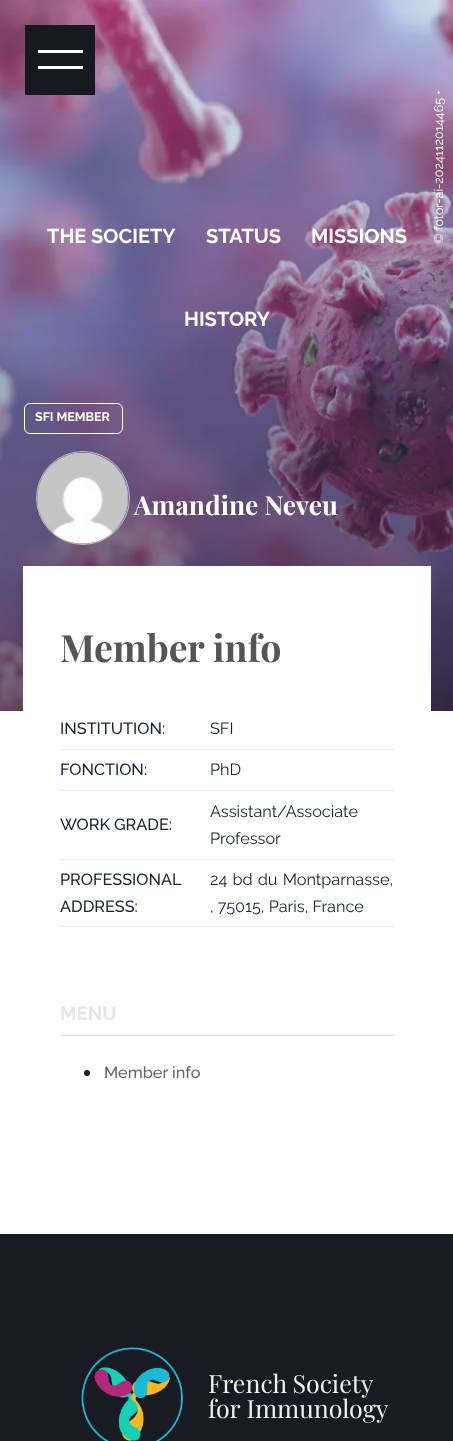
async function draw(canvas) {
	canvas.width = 453;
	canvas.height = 1441;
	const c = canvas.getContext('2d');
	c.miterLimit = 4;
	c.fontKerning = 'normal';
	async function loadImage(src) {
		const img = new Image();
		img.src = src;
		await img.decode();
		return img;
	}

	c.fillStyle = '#fff';
	c.fillRect(0, 0, 453, 1441);
	c.drawImage(await loadImage('img1.png'), 0, 0, 453, 711);
	c.fillStyle = '#171920';
	c.fillRect(25, 25, 70, 70);
	c.fillStyle = '#000';
	c.filter = 'blur(0.5px)';
	c.beginPath();
	c.rect(38, 50, 45, 3);
	c.fill();
	c.filter = 'none';
	c.fillStyle = '#fff';
	c.fillRect(38, 50, 45, 3);
	c.fillStyle = '#000';
	c.filter = 'blur(0.5px)';
	c.beginPath();
	c.rect(38, 66, 45, 3);
	c.fill();
	c.filter = 'none';
	c.fillStyle = '#fff';
	c.fillRect(38, 66, 45, 3);
	c.font = '12.5px Raleway';
	c.save();
	c.translate(443, 244);
	c.rotate(-90 * Math.PI / 180);
	c.fillText('© fotor-ai-2024112014465 •', 0, 0);
	c.restore();
	c.font = 'bold 20px Raleway';
	for (const [text, x, y] of [
		['THE SOCIETY', 47, 243],
		['STATUS', 206, 243],
		['MISSIONS', 311, 243],
		['HISTORY', 184, 326],
	]) {
		c.fillText(text, x, y);
	}
	c.beginPath();
	c.roundRect(24.5, 403.5, 98, 30, 5.5);
	c.strokeStyle = '#fff';
	c.stroke();
	c.font = 'bold 12.5px Raleway';
	c.fillText('SFI MEMBER', 35, 421);
	c.beginPath();
	c.arc(83, 498, 46.5, 0, 2 * Math.PI);
	c.strokeStyle = '#bdbdbd';
	c.stroke();
	c.drawImage(await loadImage('img2.png'), 37, 452, 92, 92);
	c.font = 'bold 26.25px Playfair Display';
	c.fillText('Amandine Neveu', 134, 515);
	c.fillRect(23, 566, 408, 145);
	c.font = 'bold 37.5px Playfair Display';
	c.fillStyle = '#555';
	c.fillText('Member info', 60, 662);
	c.fillStyle = '#eee';
	c.fillRect(60, 749, 334, 1);
	c.font = '500 16.25px Raleway';
	c.fillStyle = '#1b202c';
	c.fillText('INSTITUTION:', 60, 734);
	c.font = '16.25px Raleway';
	c.fillText('SFI', 210, 734);
	c.fillStyle = '#eee';
	c.fillRect(60, 790, 334, 1);
	c.font = '500 16.25px Raleway';
	c.fillStyle = '#1b202c';
	c.fillText('FONCTION:', 60, 775);
	c.font = '16.25px Raleway';
	c.fillText('PhD', 210, 775);
	c.fillStyle = '#eee';
	c.fillRect(60, 859, 334, 1);
	c.font = '500 16.25px Raleway';
	c.fillStyle = '#1b202c';
	c.fillText('WORK GRADE:', 60, 830);
	c.font = '16.25px Raleway';
	c.fillText('Assistant/Associate', 210, 817);
	c.fillText('Professor', 210, 844);
	c.fillStyle = '#eee';
	c.fillRect(60, 926, 334, 1);
	c.font = '500 16.25px Raleway';
	c.fillStyle = '#1b202c';
	c.fillText('PROFESSIONAL', 60, 885);
	c.fillText('ADDRESS:', 60, 912);
	c.wordSpacing = '1px';
	c.font = '16.25px Raleway';
	c.fillText('24 bd du Montparnasse,', 210, 885);
	c.wordSpacing = '0px';
	c.fillText(', 75015, Paris, France', 210, 912);
	c.fillStyle = '#ddd';
	c.fillRect(60, 1035, 334, 1);
	c.font = 'bold 19px Raleway';
	c.fillStyle = '#e6e6e6';
	c.fillText('MENU', 60, 1020);
	c.fillStyle = '#1b202c';
	c.beginPath();
	c.arc(87, 1073, 3, 0, 2 * Math.PI);
	c.fill();
	c.font = '500 16.25px Raleway';
	c.fillStyle = '#666';
	c.fillText('Member info', 104, 1078);
	c.fillStyle = '#181b21';
	c.fillRect(0, 1234, 453, 207);
	c.drawImage(await loadImage('img3.png'), 81, 1347, 102, 94);
	c.wordSpacing = '-1px';
	c.font = '25px Playfair Display';
	c.fillStyle = '#eee';
	c.fillText('French Society', 208, 1393);
	c.wordSpacing = '0px';
	c.fillText('for Immunology', 208, 1418);
}

draw(document.querySelector('canvas'));
